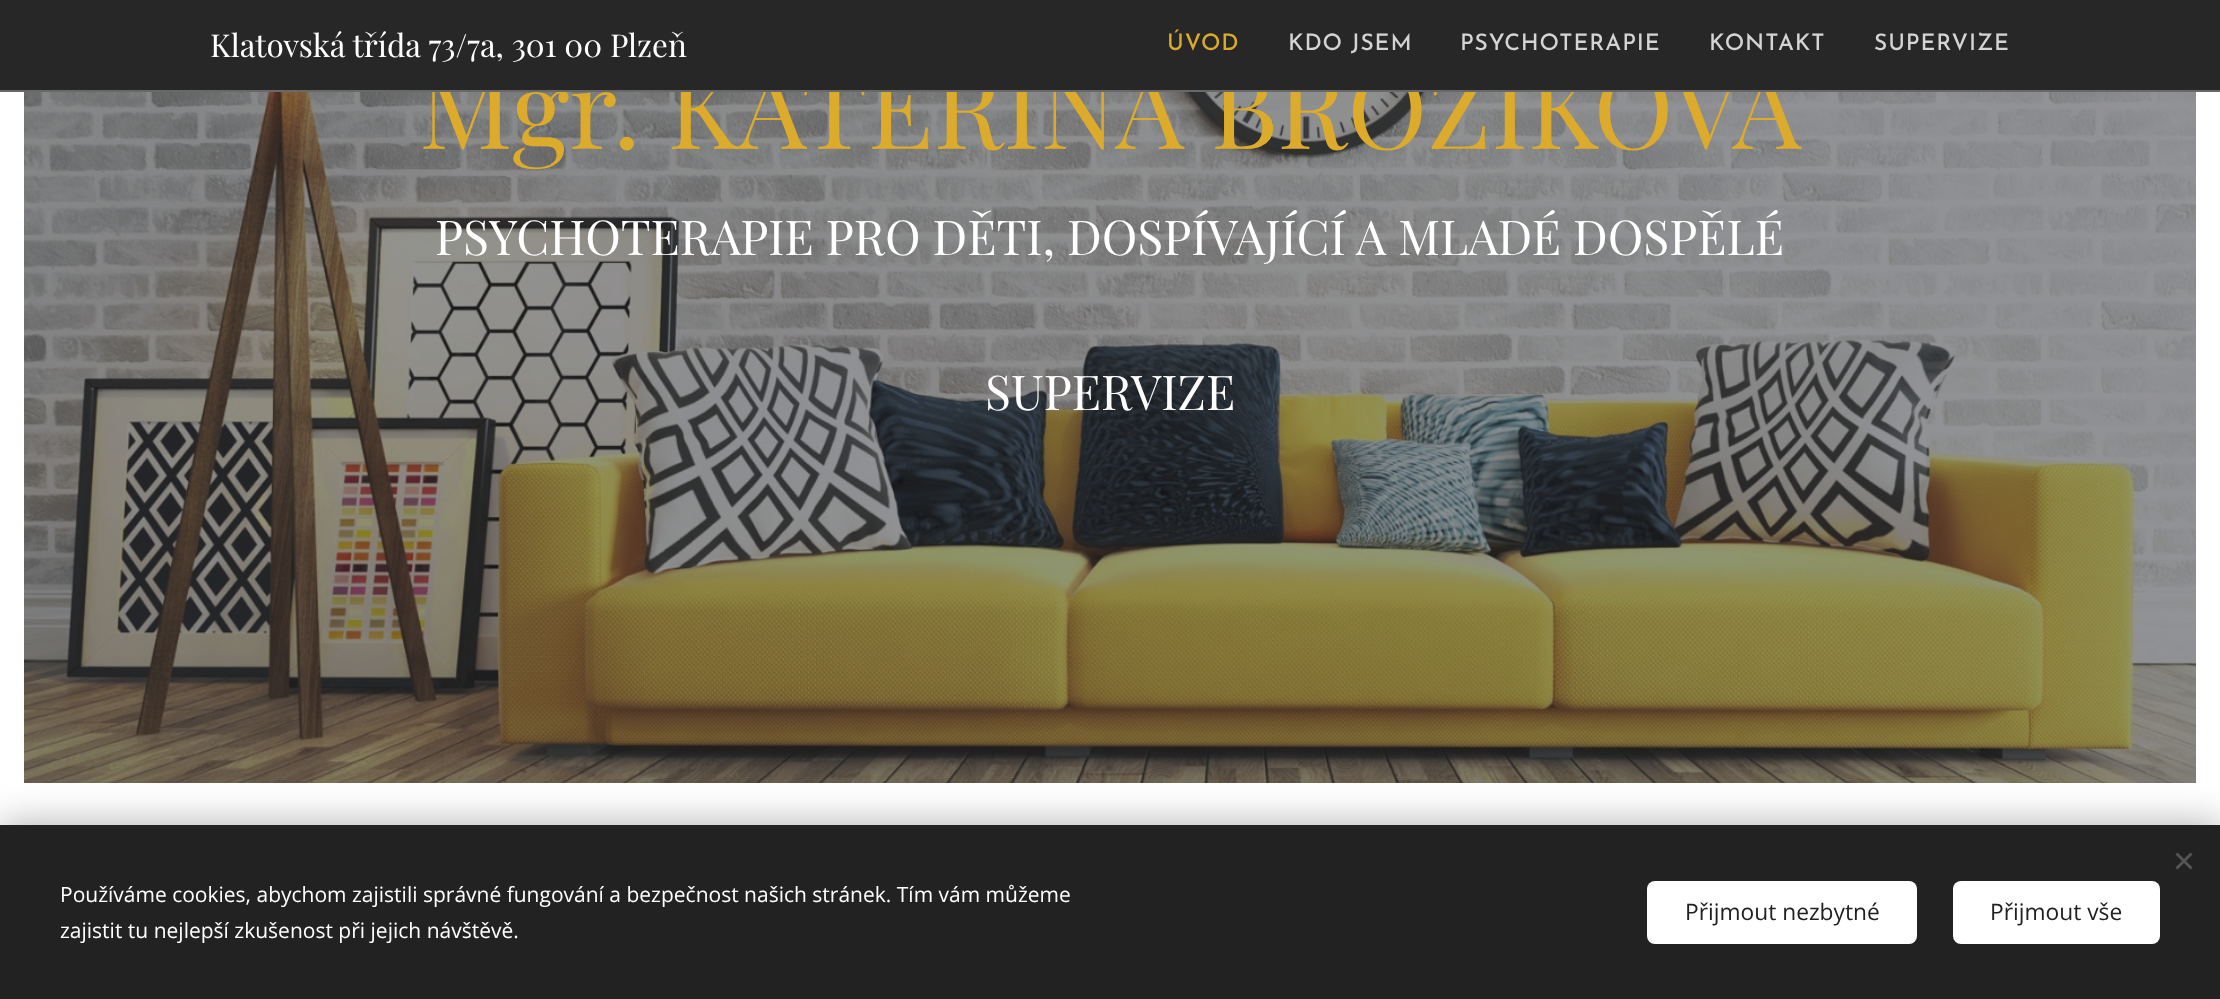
async function draw(canvas) {
	canvas.width = 2220;
	canvas.height = 999;
	const c = canvas.getContext('2d');
	c.miterLimit = 4;
	c.fontKerning = 'normal';
	async function loadImage(src) {
		const img = new Image();
		img.src = src;
		await img.decode();
		return img;
	}

	c.fillStyle = '#fff';
	c.fillRect(0, 0, 2220, 999);
	c.drawImage(await loadImage('img1.png'), 24, 92, 2172, 691);
	c.font = '108px Playfair Display';
	c.fillStyle = '#dcab2b';
	c.fillText('Mgr. KATEŘINA BROŽÍKOVÁ', 419, 149);
	c.fillStyle = '#272727';
	c.fillRect(0, 0, 2220, 90);
	c.fillStyle = '#686868';
	c.fillRect(0, 90, 2220, 2);
	c.font = '31.5px Playfair Display';
	c.fillStyle = '#fff';
	c.fillText('Klatovská třída 73/7a, 301 00 Plzeň', 210, 57);
	c.letterSpacing = '0.9px';
	c.font = '500 22.75px Josefin Sans';
	c.fillStyle = '#dcab2b';
	c.fillText('ÚVOD', 1167, 50);
	c.fillStyle = '#d4d4d4';
	for (const [text, x, y] of [
		['KDO JSEM', 1288, 50],
		['PSYCHOTERAPIE', 1460, 50],
		['KONTAKT', 1709, 50],
		['SUPERVIZE', 1874, 50],
	]) {
		c.fillText(text, x, y);
	}
	c.letterSpacing = '0px';
	c.font = '48px Playfair Display';
	c.fillStyle = '#fff';
	c.fillText('PSYCHOTERAPIE PRO DĚTI, DOSPÍVAJÍCÍ A MLADÉ DOSPĚLÉ', 435, 255);
	c.fillText('SUPERVIZE', 985, 410);
	c.fillStyle = '#00000054';
	c.filter = 'blur(19px)';
	c.beginPath();
	c.rect(0, 825, 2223, 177);
	c.fill();
	c.filter = 'none';
	c.fillStyle = '#222';
	c.fillRect(0, 825, 2220, 174);
	c.fillStyle = '#555';
	c.beginPath();
	c.moveTo(2175.5, 867.5);
	c.lineTo(2190.5, 852.5);
	c.lineTo(2192.5, 854.5);
	c.lineTo(2177.5, 869.5);
	c.closePath();
	c.fill();
	c.beginPath();
	c.moveTo(2177.5, 852.5);
	c.lineTo(2192.5, 867.5);
	c.lineTo(2190.5, 869.5);
	c.lineTo(2175.5, 854.5);
	c.closePath();
	c.fill();
	c.font = '21px Open Sans';
	c.fillStyle = '#fff';
	c.fillText('Používáme cookies, abychom zajistili správné fungování a bezpečnost našich stránek. Tím vám můžeme', 60, 902);
	c.fillText('zajistit tu nejlepší zkušenost při jejich návštěvě.', 60, 938);
	c.beginPath();
	c.roundRect(1647, 881, 270, 63, 8);
	c.fill();
	c.font = '22.75px Open Sans';
	c.fillStyle = '#222';
	c.fillText('Přijmout nezbytné', 1685, 920);
	c.fillStyle = '#fff';
	c.beginPath();
	c.roundRect(1953, 881, 207, 63, 8);
	c.fill();
	c.fillStyle = '#222';
	c.fillText('Přijmout vše', 1990, 920);
}

draw(document.querySelector('canvas'));
